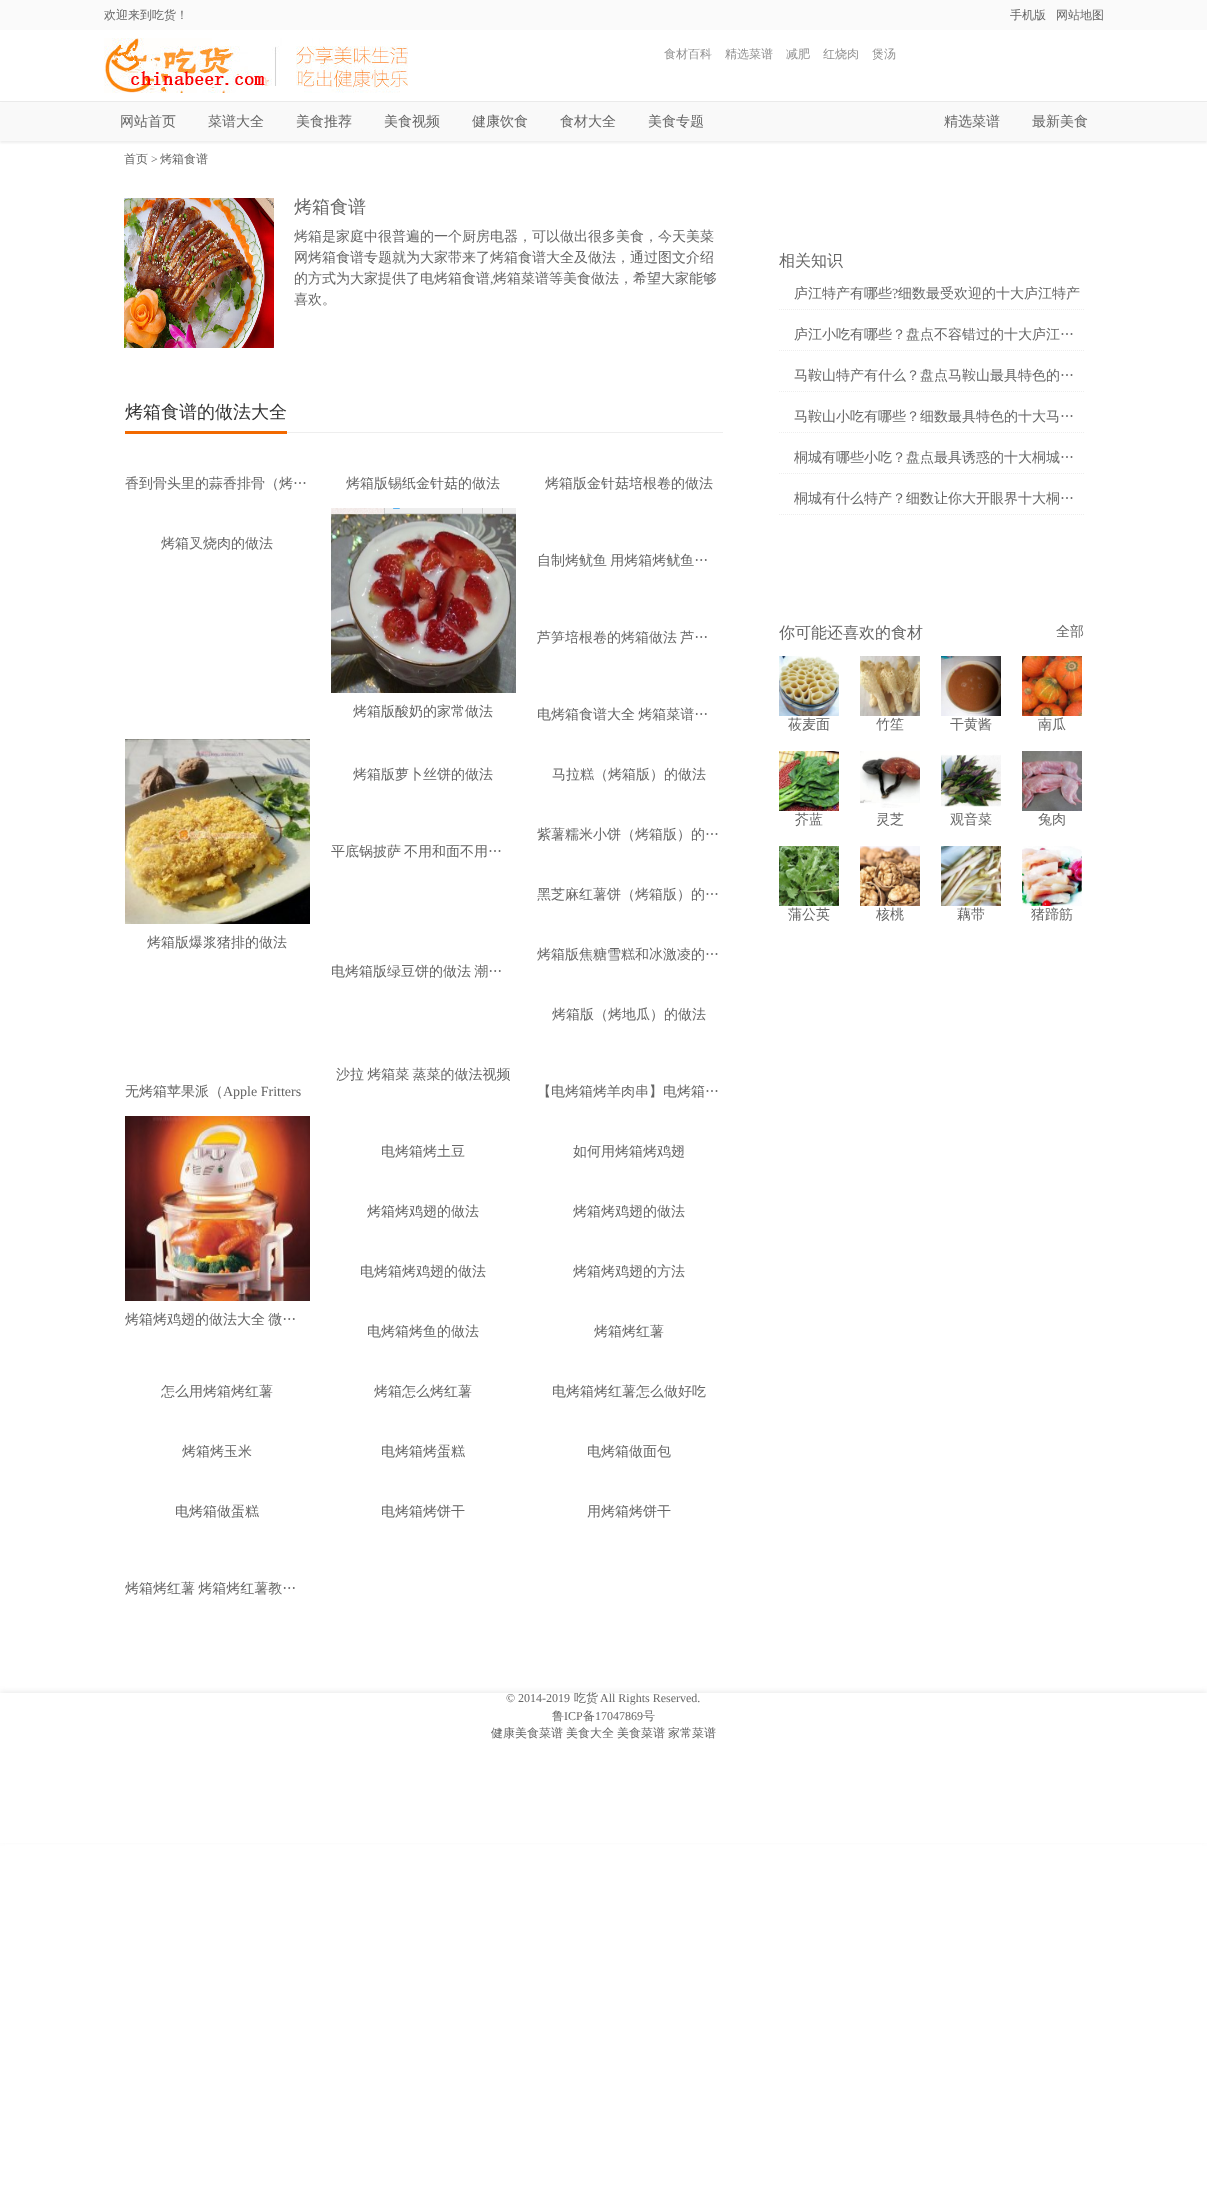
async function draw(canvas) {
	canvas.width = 1207;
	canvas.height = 2211;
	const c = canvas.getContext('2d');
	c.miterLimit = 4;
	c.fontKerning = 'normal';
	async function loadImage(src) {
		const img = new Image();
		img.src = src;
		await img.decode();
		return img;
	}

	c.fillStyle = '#fff';
	c.fillRect(0, 0, 1207, 2211);
	c.fillStyle = '#fafafa';
	c.fillRect(0, 0, 1207, 30);
	c.font = '500 12px WenQuanYi Zen Hei';
	c.fillStyle = '#666';
	for (const [text, x, y] of [
		['欢迎来到吃货！', 104, 19],
		['手机版', 1010, 19],
		['网站地图', 1056, 19],
	]) {
		c.fillText(text, x, y);
	}
	c.drawImage(await loadImage('img1.png'), 104, 38, 304, 55);
	c.fillStyle = '#909090';
	for (const [text, x, y] of [
		['食材百科', 664, 58],
		['精选菜谱', 725, 58],
		['减肥', 786, 58],
		['红烧肉', 823, 58],
		['煲汤', 872, 58],
	]) {
		c.fillText(text, x, y);
	}
	c.fillStyle = '#eee';
	c.filter = 'blur(1px)';
	c.beginPath();
	c.rect(0, 103, 1207, 40);
	c.fill();
	c.filter = 'none';
	c.fillStyle = '#f9f9f9';
	c.fillRect(0, 103, 1207, 38);
	c.fillStyle = '#eaeaea';
	c.fillRect(0, 101, 1207, 1);
	c.font = '500 14px WenQuanYi Zen Hei';
	c.fillStyle = '#666';
	for (const [text, x, y] of [
		['网站首页', 120, 126],
		['菜谱大全', 208, 126],
		['美食推荐', 296, 126],
		['美食视频', 384, 126],
		['健康饮食', 472, 126],
		['食材大全', 560, 126],
		['美食专题', 648, 126],
		['精选菜谱', 944, 126],
		['最新美食', 1032, 126],
	]) {
		c.fillText(text, x, y);
	}
	c.font = '500 12px WenQuanYi Zen Hei';
	c.fillText('首页', 124, 163);
	c.font = '12px Liberation Serif';
	c.fillText('>', 151, 163);
	c.font = '500 12px WenQuanYi Zen Hei';
	c.fillText('烤箱食谱', 160, 163);
	c.drawImage(await loadImage('img2.png'), 124, 198, 150, 150);
	c.font = '500 18px WenQuanYi Zen Hei';
	c.fillText('烤箱食谱', 294, 213);
	c.font = '500 14px WenQuanYi Zen Hei';
	for (const [text, x, y] of [
		['烤箱是家庭中很普遍的一个厨房电器，可以做出很多美食，今天美菜', 294, 241],
		['网烤箱食谱专题就为大家带来了烤箱食谱大全及做法，通过图文介绍', 294, 262],
		['的方式为大家提供了电烤箱食谱', 294, 283],
	]) {
		c.fillText(text, x, y);
	}
	c.font = '14px Liberation Serif';
	c.fillText(',', 490, 283);
	c.font = '500 14px WenQuanYi Zen Hei';
	c.fillText('烤箱菜谱等美食做法，希望大家能够', 493, 283);
	c.fillText('喜欢。', 294, 304);
	c.fillStyle = '#eee';
	c.fillRect(287, 432, 436, 1);
	c.fillStyle = '#f26900';
	c.fillRect(125, 431, 162, 3);
	c.font = '500 18px WenQuanYi Zen Hei';
	c.fillStyle = '#333';
	c.fillText('烤箱食谱的做法大全', 125, 418);
	c.font = '500 14px WenQuanYi Zen Hei';
	c.fillStyle = '#666';
	for (const [text, x, y] of [
		['香到骨头里的蒜香排骨（烤…', 125, 488],
		['烤箱版锡纸金针菇的做法', 346, 488],
		['烤箱版金针菇培根卷的做法', 545, 488],
		['烤箱叉烧肉的做法', 161, 548],
	]) {
		c.fillText(text, x, y);
	}
	c.wordSpacing = '-1px';
	c.fillText('自制烤鱿鱼 用烤箱烤鱿鱼…', 537, 565);
	c.fillText('芦笋培根卷的烤箱做法 芦…', 537, 642);
	c.drawImage(await loadImage('img3.png'), 331, 508, 185, 185);
	c.wordSpacing = '0px';
	c.fillText('烤箱版酸奶的家常做法', 353, 716);
	c.wordSpacing = '-1px';
	c.fillText('电烤箱食谱大全 烤箱菜谱…', 537, 719);
	c.wordSpacing = '0px';
	for (const [text, x, y] of [
		['烤箱版萝卜丝饼的做法', 353, 779],
		['马拉糕（烤箱版）的做法', 552, 779],
		['紫薯糯米小饼（烤箱版）的…', 537, 839],
		['平底锅披萨', 331, 856],
		['不用和面不用…', 404, 856],
		['黑芝麻红薯饼（烤箱版）的…', 537, 899],
	]) {
		c.fillText(text, x, y);
	}
	c.drawImage(await loadImage('img4.png'), 125, 739, 185, 185);
	c.fillText('烤箱版爆浆猪排的做法', 147, 947);
	c.fillText('烤箱版焦糖雪糕和冰激凌的…', 537, 959);
	c.wordSpacing = '-1px';
	c.fillText('电烤箱版绿豆饼的做法 潮…', 331, 976);
	c.wordSpacing = '0px';
	c.fillText('烤箱版（烤地瓜）的做法', 552, 1019);
	c.wordSpacing = '-1px';
	c.fillText('沙拉 烤箱菜 蒸菜的做法视频', 336, 1079);
	c.wordSpacing = '0px';
	c.fillText('无烤箱苹果派（', 125, 1096);
	c.font = '14px Liberation Serif';
	c.fillText('Apple Fritters', 223, 1096);
	c.font = '500 14px WenQuanYi Zen Hei';
	for (const [text, x, y] of [
		['【电烤箱烤羊肉串】电烤箱…', 537, 1096],
		['电烤箱烤土豆', 381, 1156],
		['如何用烤箱烤鸡翅', 573, 1156],
		['烤箱烤鸡翅的做法', 367, 1216],
		['烤箱烤鸡翅的做法', 573, 1216],
		['电烤箱烤鸡翅的做法', 360, 1276],
		['烤箱烤鸡翅的方法', 573, 1276],
	]) {
		c.fillText(text, x, y);
	}
	c.drawImage(await loadImage('img5.png'), 125, 1116, 185, 185);
	c.wordSpacing = '-1px';
	c.fillText('烤箱烤鸡翅的做法大全 微…', 125, 1324);
	c.wordSpacing = '0px';
	for (const [text, x, y] of [
		['电烤箱烤鱼的做法', 367, 1336],
		['烤箱烤红薯', 594, 1336],
		['怎么用烤箱烤红薯', 161, 1396],
		['烤箱怎么烤红薯', 374, 1396],
		['电烤箱烤红薯怎么做好吃', 552, 1396],
		['烤箱烤玉米', 182, 1456],
		['电烤箱烤蛋糕', 381, 1456],
		['电烤箱做面包', 587, 1456],
		['电烤箱做蛋糕', 175, 1516],
		['电烤箱烤饼干', 381, 1516],
		['用烤箱烤饼干', 587, 1516],
	]) {
		c.fillText(text, x, y);
	}
	c.wordSpacing = '-1px';
	c.fillText('烤箱烤红薯 烤箱烤红薯教…', 125, 1593);
	c.wordSpacing = '0px';
	c.font = '500 16px WenQuanYi Zen Hei';
	c.fillText('相关知识', 779, 266);
	c.beginPath();
	c.moveTo(779, 309.5);
	c.lineTo(1084, 309.5);
	c.strokeStyle = '#eee';
	c.setLineDash([1, 1]);
	c.stroke();
	c.font = '500 14px WenQuanYi Zen Hei';
	c.fillText('庐江特产有哪些', 794, 298);
	c.font = '14px Liberation Serif';
	c.fillText('?', 892, 298);
	c.font = '500 14px WenQuanYi Zen Hei';
	c.fillText('细数最受欢迎的十大庐江特产', 898, 298);
	c.beginPath();
	c.moveTo(779, 350.5);
	c.lineTo(1084, 350.5);
	c.stroke();
	c.fillText('庐江小吃有哪些？盘点不容错过的十大庐江…', 794, 339);
	c.beginPath();
	c.moveTo(779, 391.5);
	c.lineTo(1084, 391.5);
	c.stroke();
	c.fillText('马鞍山特产有什么？盘点马鞍山最具特色的…', 794, 380);
	c.beginPath();
	c.moveTo(779, 432.5);
	c.lineTo(1084, 432.5);
	c.stroke();
	c.fillText('马鞍山小吃有哪些？细数最具特色的十大马…', 794, 421);
	c.beginPath();
	c.moveTo(779, 473.5);
	c.lineTo(1084, 473.5);
	c.stroke();
	c.fillText('桐城有哪些小吃？盘点最具诱惑的十大桐城…', 794, 462);
	c.beginPath();
	c.moveTo(779, 514.5);
	c.lineTo(1084, 514.5);
	c.stroke();
	c.fillText('桐城有什么特产？细数让你大开眼界十大桐…', 794, 503);
	c.font = '500 16px WenQuanYi Zen Hei';
	c.fillText('你可能还喜欢的食材', 779, 638);
	c.font = '500 14px WenQuanYi Zen Hei';
	c.fillText('全部', 1056, 636);
	c.drawImage(await loadImage('img6.png'), 779, 656, 60, 60);
	c.fillText('莜麦面', 788, 729);
	c.drawImage(await loadImage('img7.png'), 860, 656, 60, 60);
	c.fillText('竹笙', 876, 729);
	c.drawImage(await loadImage('img8.png'), 941, 656, 60, 60);
	c.fillText('干黄酱', 950, 729);
	c.drawImage(await loadImage('img9.png'), 1022, 656, 60, 60);
	c.fillText('南瓜', 1038, 729);
	c.drawImage(await loadImage('img10.png'), 779, 751, 60, 60);
	c.fillText('芥蓝', 795, 824);
	c.drawImage(await loadImage('img11.png'), 860, 751, 60, 57);
	c.fillText('灵芝', 876, 824);
	c.drawImage(await loadImage('img12.png'), 941, 754, 60, 53);
	c.fillText('观音菜', 950, 824);
	c.drawImage(await loadImage('img13.png'), 1022, 751, 60, 60);
	c.fillText('兔肉', 1038, 824);
	c.drawImage(await loadImage('img14.png'), 779, 846, 60, 60);
	c.fillText('蒲公英', 788, 919);
	c.drawImage(await loadImage('img15.png'), 860, 846, 60, 60);
	c.fillText('核桃', 876, 919);
	c.drawImage(await loadImage('img16.png'), 941, 846, 60, 60);
	c.fillText('藕带', 957, 919);
	c.drawImage(await loadImage('img17.png'), 1022, 846, 60, 60);
	c.fillText('猪蹄筋', 1031, 919);
	c.save();
	c.beginPath();
	c.moveTo(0, 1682);
	c.lineTo(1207, 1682);
	c.lineTo(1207, 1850);
	c.lineTo(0, 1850);
	c.closePath();
	c.moveTo(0, 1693);
	c.lineTo(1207, 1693);
	c.lineTo(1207, 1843);
	c.lineTo(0, 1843);
	c.closePath();
	c.clip('evenodd');
	c.fillStyle = '#eee';
	c.filter = 'blur(2.5px)';
	c.beginPath();
	c.rect(0, 1691, 1207, 150);
	c.fill();
	c.filter = 'none';
	c.restore();
	c.font = '12px Liberation Serif';
	c.fillText('© 2014-2019', 506, 1702);
	c.font = '500 12px WenQuanYi Zen Hei';
	c.fillText('吃货', 574, 1702);
	c.font = '12px Liberation Serif';
	c.fillText('All Rights Reserved.', 600, 1702);
	c.font = '500 12px WenQuanYi Zen Hei';
	c.fillText('鲁', 552, 1720);
	c.font = '12px Liberation Serif';
	c.fillText('ICP', 564, 1720);
	c.font = '500 12px WenQuanYi Zen Hei';
	c.fillText('备', 583, 1720);
	c.font = '12px Liberation Serif';
	c.fillText('17047869', 595, 1720);
	c.font = '500 12px WenQuanYi Zen Hei';
	for (const [text, x, y] of [
		['号', 643, 1720],
		['健康美食菜谱', 491, 1737],
		['美食大全', 566, 1737],
		['美食菜谱', 617, 1737],
		['家常菜谱', 668, 1737],
	]) {
		c.fillText(text, x, y);
	}
}

draw(document.querySelector('canvas'));
